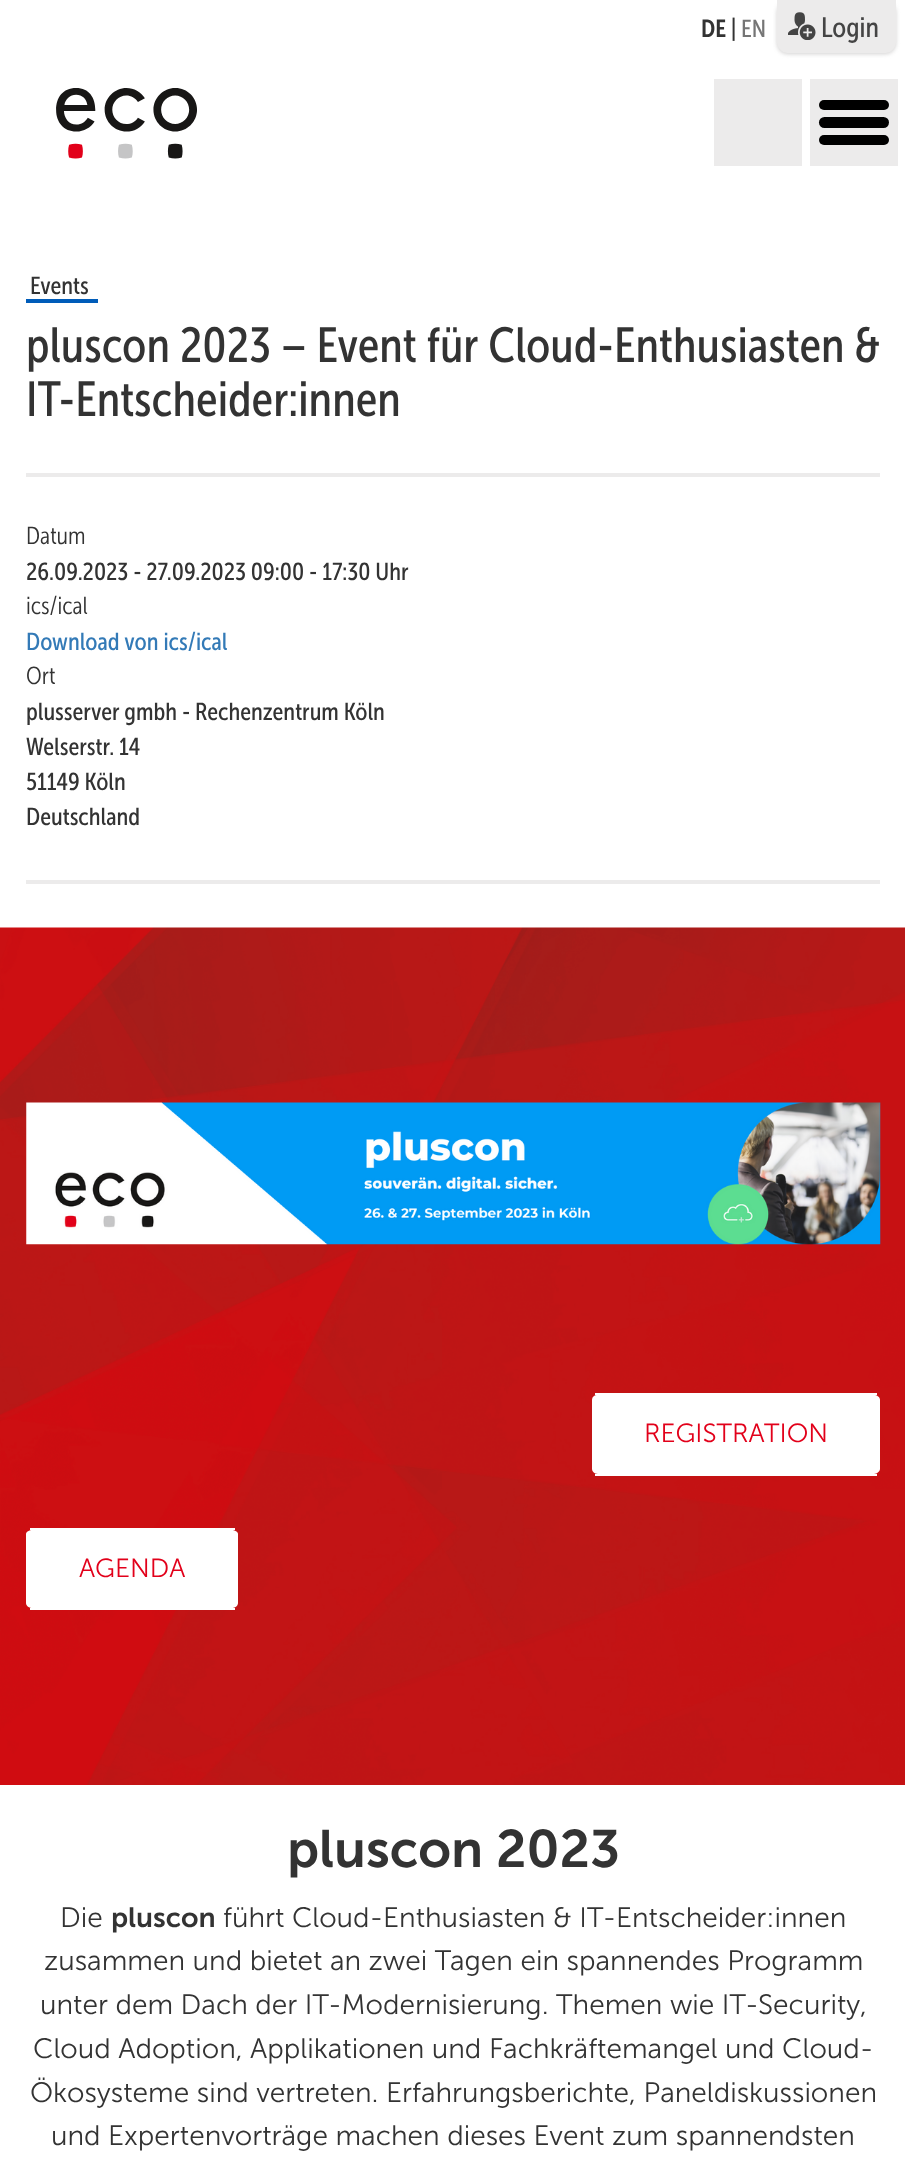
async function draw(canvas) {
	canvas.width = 905;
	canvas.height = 2176;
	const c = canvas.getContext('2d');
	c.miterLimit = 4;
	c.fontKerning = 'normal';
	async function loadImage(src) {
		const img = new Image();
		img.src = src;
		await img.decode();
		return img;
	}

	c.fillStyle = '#fff';
	c.fillRect(0, 0, 905, 2176);
	c.font = '600 24.5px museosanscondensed';
	c.fillStyle = '#333';
	c.fillText('DE', 701, 37);
	c.font = '24.5px museosanscondensed';
	c.fillText('|', 731, 37);
	c.fillStyle = '#757575';
	c.fillText('EN', 741, 37);
	c.fillStyle = '#d2d1d1';
	c.filter = 'blur(2px)';
	c.beginPath();
	c.roundRect(777, 2, 119, 52, 11);
	c.fill();
	c.filter = 'none';
	c.fillStyle = '#ecebeb';
	c.beginPath();
	c.roundRect(777, 0, 119, 53, [0, 0, 11, 11]);
	c.fill();
	c.drawImage(await loadImage('img1.png'), 788, 12, 28, 28);
	c.font = '28px museosanscondensed';
	c.fillStyle = '#444';
	c.fillText('Login', 821, 37);
	c.drawImage(await loadImage('img2.png'), 56, 88, 141, 71);
	c.fillStyle = '#ecebeb';
	c.fillRect(714, 79, 88, 87);
	c.fillRect(810, 79, 88, 87);
	c.fillStyle = '#000';
	c.beginPath();
	c.roundRect(819, 117, 70, 11, 5.5);
	c.fill();
	c.beginPath();
	c.roundRect(819, 100, 70, 10, 5);
	c.fill();
	c.beginPath();
	c.roundRect(819, 135, 70, 10, 5);
	c.fill();
	c.font = '24.5px museosanscondensed';
	c.fillStyle = '#333';
	c.fillText('Events', 30, 294);
	c.fillStyle = '#005cb9';
	c.fillRect(26, 299, 72, 4);
	c.font = '49px museosanscondensed';
	c.fillStyle = '#333';
	c.fillText('pluscon 2023 – Event für Cloud-Enthusiasten &', 26, 362);
	c.fillText('IT-Entscheider:innen', 26, 416);
	c.fillStyle = '#ecebeb';
	c.fillRect(26, 473, 854, 4);
	c.fillRect(26, 880, 854, 4);
	c.font = '300 24.5px museosanscondensed';
	c.fillStyle = '#333';
	c.fillText('Datum', 26, 544);
	c.font = '24.5px museosanscondensed';
	c.fillText('26.09.2023 - 27.09.2023 09:00 - 17:30 Uhr', 26, 580);
	c.font = '300 24.5px museosanscondensed';
	c.fillText('ics/ical', 26, 614);
	c.font = '24.5px museosanscondensed';
	c.fillStyle = '#337ab7';
	c.fillText('Download von ics/ical', 26, 650);
	c.font = '300 24.5px museosanscondensed';
	c.fillStyle = '#333';
	c.fillText('Ort', 26, 684);
	c.font = '24.5px museosanscondensed';
	for (const [text, x, y] of [
		['plusserver gmbh - Rechenzentrum Köln', 26, 720],
		['Welserstr. 14', 26, 755],
		['51149 Köln', 26, 790],
		['Deutschland', 26, 825],
	]) {
		c.fillText(text, x, y);
	}
	c.drawImage(await loadImage('img3.png'), 0, 927, 905, 858);
	c.drawImage(await loadImage('img4.png'), 26, 1102, 855, 143);
	c.fillStyle = '#fff';
	c.beginPath();
	c.moveTo(598, 1395);
	c.lineTo(874, 1395);
	c.bezierCurveTo(877, 1395, 880, 1397, 880, 1400);
	c.lineTo(880, 1469);
	c.bezierCurveTo(880, 1471, 877, 1474, 874, 1474);
	c.lineTo(598, 1474);
	c.bezierCurveTo(594, 1474, 592, 1471, 592, 1469);
	c.lineTo(592, 1400);
	c.bezierCurveTo(592, 1397, 594, 1395, 598, 1395);
	c.closePath();
	c.fill();
	c.fillRect(595, 1393, 282, 2);
	c.fillRect(595, 1474, 282, 2);
	c.font = '300 26.25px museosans';
	c.fillStyle = '#e2001a';
	c.fillText('REGISTRATION', 644, 1442);
	c.fillStyle = '#fff';
	c.beginPath();
	c.moveTo(33, 1530);
	c.lineTo(231, 1530);
	c.bezierCurveTo(235, 1530, 238, 1532, 238, 1534);
	c.lineTo(238, 1603);
	c.bezierCurveTo(238, 1606, 235, 1608, 231, 1608);
	c.lineTo(33, 1608);
	c.bezierCurveTo(29, 1608, 26, 1606, 26, 1603);
	c.lineTo(26, 1534);
	c.bezierCurveTo(26, 1532, 29, 1530, 33, 1530);
	c.closePath();
	c.fill();
	c.fillRect(30, 1528, 205, 2);
	c.fillRect(30, 1608, 205, 2);
	c.fillStyle = '#e2001a';
	c.fillText('AGENDA', 79, 1577);
	c.font = '600 52.5px museosans';
	c.fillStyle = '#333';
	c.fillText('pluscon 2023', 287, 1867);
	c.font = '300 28px museosans';
	c.fillText('Die', 60, 1927);
	c.font = '600 28px museosans';
	c.fillText('pluscon', 111, 1927);
	c.font = '300 28px museosans';
	for (const [text, x, y] of [
		['führt Cloud-Enthusiasten & IT-Entscheider:innen', 223, 1927],
		['zusammen und bietet an zwei Tagen ein spannendes Programm', 44, 1970],
		['unter dem Dach der IT-Modernisierung. Themen wie IT-Security,', 40, 2014],
		['Cloud Adoption, Applikationen und Fachkräftemangel und Cloud-', 33, 2058],
		['Ökosysteme sind vertreten. Erfahrungsberichte, Paneldiskussionen', 30, 2102],
		['und Expertenvorträge machen dieses Event zum spannendsten', 51, 2145],
	]) {
		c.fillText(text, x, y);
	}
}

draw(document.querySelector('canvas'));
